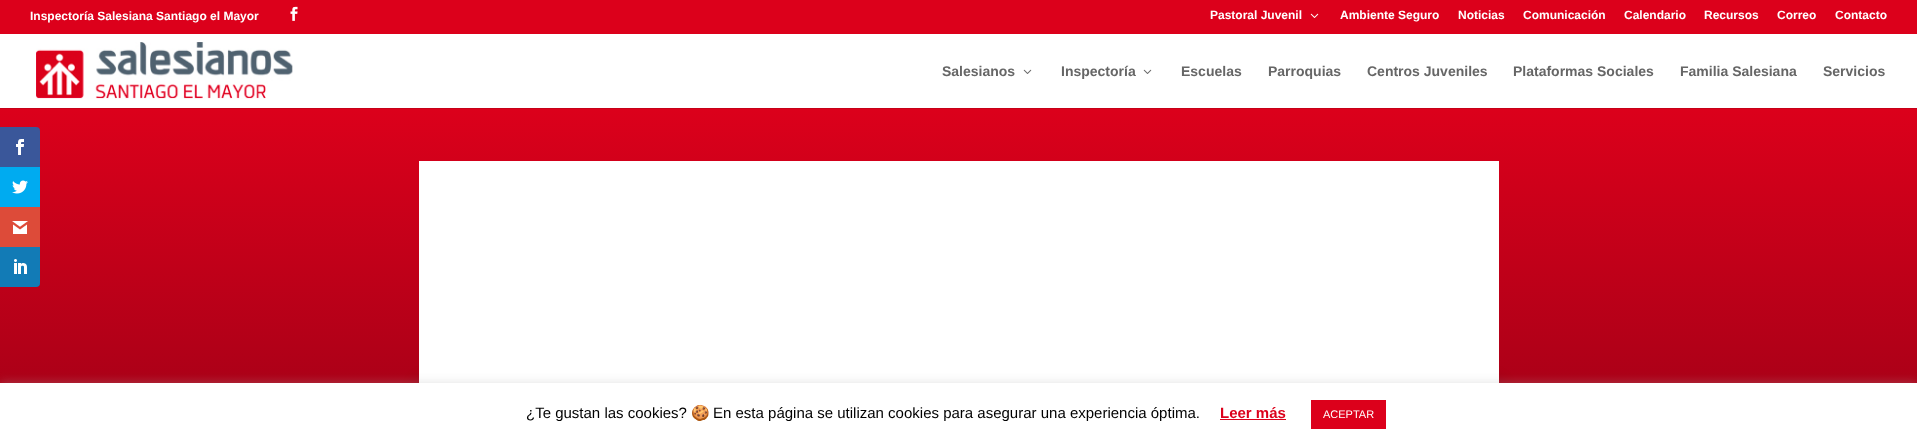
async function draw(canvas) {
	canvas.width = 1917;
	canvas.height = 446;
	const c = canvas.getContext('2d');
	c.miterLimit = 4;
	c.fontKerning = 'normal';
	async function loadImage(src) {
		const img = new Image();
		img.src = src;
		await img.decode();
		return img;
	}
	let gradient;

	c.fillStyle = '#fff';
	c.fillRect(0, 0, 1917, 446);
	c.fillStyle = '#dc001b';
	c.fillRect(0, 0, 1917, 34);
	c.font = 'bold 12px Liberation Sans';
	c.fillStyle = '#fff';
	c.fillText('Inspectoría Salesiana Santiago el Mayor', 30, 20);
	c.drawImage(await loadImage('img1.png'), 290, 6, 8, 15);
	c.fillText('Pastoral Juvenil', 1210, 19);
	c.drawImage(await loadImage('img2.png'), 1310, 13, 9, 5);
	for (const [text, x, y] of [
		['Ambiente Seguro', 1340, 19],
		['Noticias', 1458, 19],
		['Comunicación', 1523, 19],
		['Calendario', 1624, 19],
		['Recursos', 1704, 19],
		['Correo', 1777, 19],
		['Contacto', 1835, 19],
	]) {
		c.fillText(text, x, y);
	}
	c.fillStyle = '#c60018';
	c.fillRect(0, 108, 1917, 1);
	c.drawImage(await loadImage('img3.png'), 36, 42, 257, 57);
	c.font = 'bold 14px Liberation Sans';
	c.fillStyle = '#666';
	c.fillText('Salesianos', 942, 76);
	c.drawImage(await loadImage('img4.png'), 1023, 69, 9, 5);
	c.fillText('Inspectoría', 1061, 76);
	c.drawImage(await loadImage('img4.png'), 1143, 69, 9, 5);
	for (const [text, x, y] of [
		['Escuelas', 1181, 76],
		['Parroquias', 1268, 76],
		['Centros Juveniles', 1367, 76],
		['Plataformas Sociales', 1513, 76],
		['Familia Salesiana', 1680, 76],
		['Servicios', 1823, 76],
	]) {
		c.fillText(text, x, y);
	}
	gradient = c.createLinearGradient(959, 107, 959, 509);
	gradient.addColorStop(0, '#dc001b');
	gradient.addColorStop(1, '#960016');
	c.fillStyle = gradient;
	c.fillRect(0, 109, 1917, 274);
	c.fillStyle = '#0000004d';
	c.filter = 'blur(9px)';
	c.beginPath();
	c.roundRect(419, 382, 1080, 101, 10);
	c.fill();
	c.filter = 'none';
	c.fillStyle = '#fff';
	c.fillRect(419, 161, 1080, 222);
	c.fillStyle = '#3a579a';
	c.beginPath();
	c.roundRect(0, 127, 40, 40, [0, 4, 0, 0]);
	c.fill();
	c.drawImage(await loadImage('img5.png'), 16, 139, 8, 16);
	c.fillStyle = '#00abf0';
	c.fillRect(0, 167, 40, 40);
	c.drawImage(await loadImage('img6.png'), 12, 180, 16, 14);
	c.fillStyle = '#dd4b39';
	c.fillRect(0, 207, 40, 40);
	c.drawImage(await loadImage('img7.png'), 12, 221, 16, 13);
	c.fillStyle = '#127bb6';
	c.beginPath();
	c.roundRect(0, 247, 40, 40, [0, 0, 4, 0]);
	c.fill();
	c.drawImage(await loadImage('img8.png'), 14, 259, 13, 15);
	c.fillStyle = '#acabab4d';
	c.filter = 'blur(5px)';
	c.beginPath();
	c.rect(0, 382, 1917, 63);
	c.fill();
	c.filter = 'none';
	c.fillStyle = '#fff';
	c.fillRect(0, 383, 1917, 63);
	c.font = '15px Liberation Sans';
	c.fillStyle = '#000';
	c.fillText('¿Te gustan las cookies?', 526, 418);
	c.font = '15px Noto Color Emoji';
	c.fillText('🍪', 691, 418);
	c.font = '15px Liberation Sans';
	c.fillText('En esta página se utilizan cookies para asegurar una experiencia óptima.', 713, 418);
	c.font = 'bold 15px Liberation Sans';
	c.fillStyle = '#dc001b';
	c.fillText('Leer más', 1220, 418);
	c.fillRect(1220, 419, 66, 1);
	c.fillRect(1311, 400, 75, 29);
	c.font = '11px Liberation Sans';
	c.fillStyle = '#fff';
	c.fillText('ACEPTAR', 1323, 418);
}

draw(document.querySelector('canvas'));
